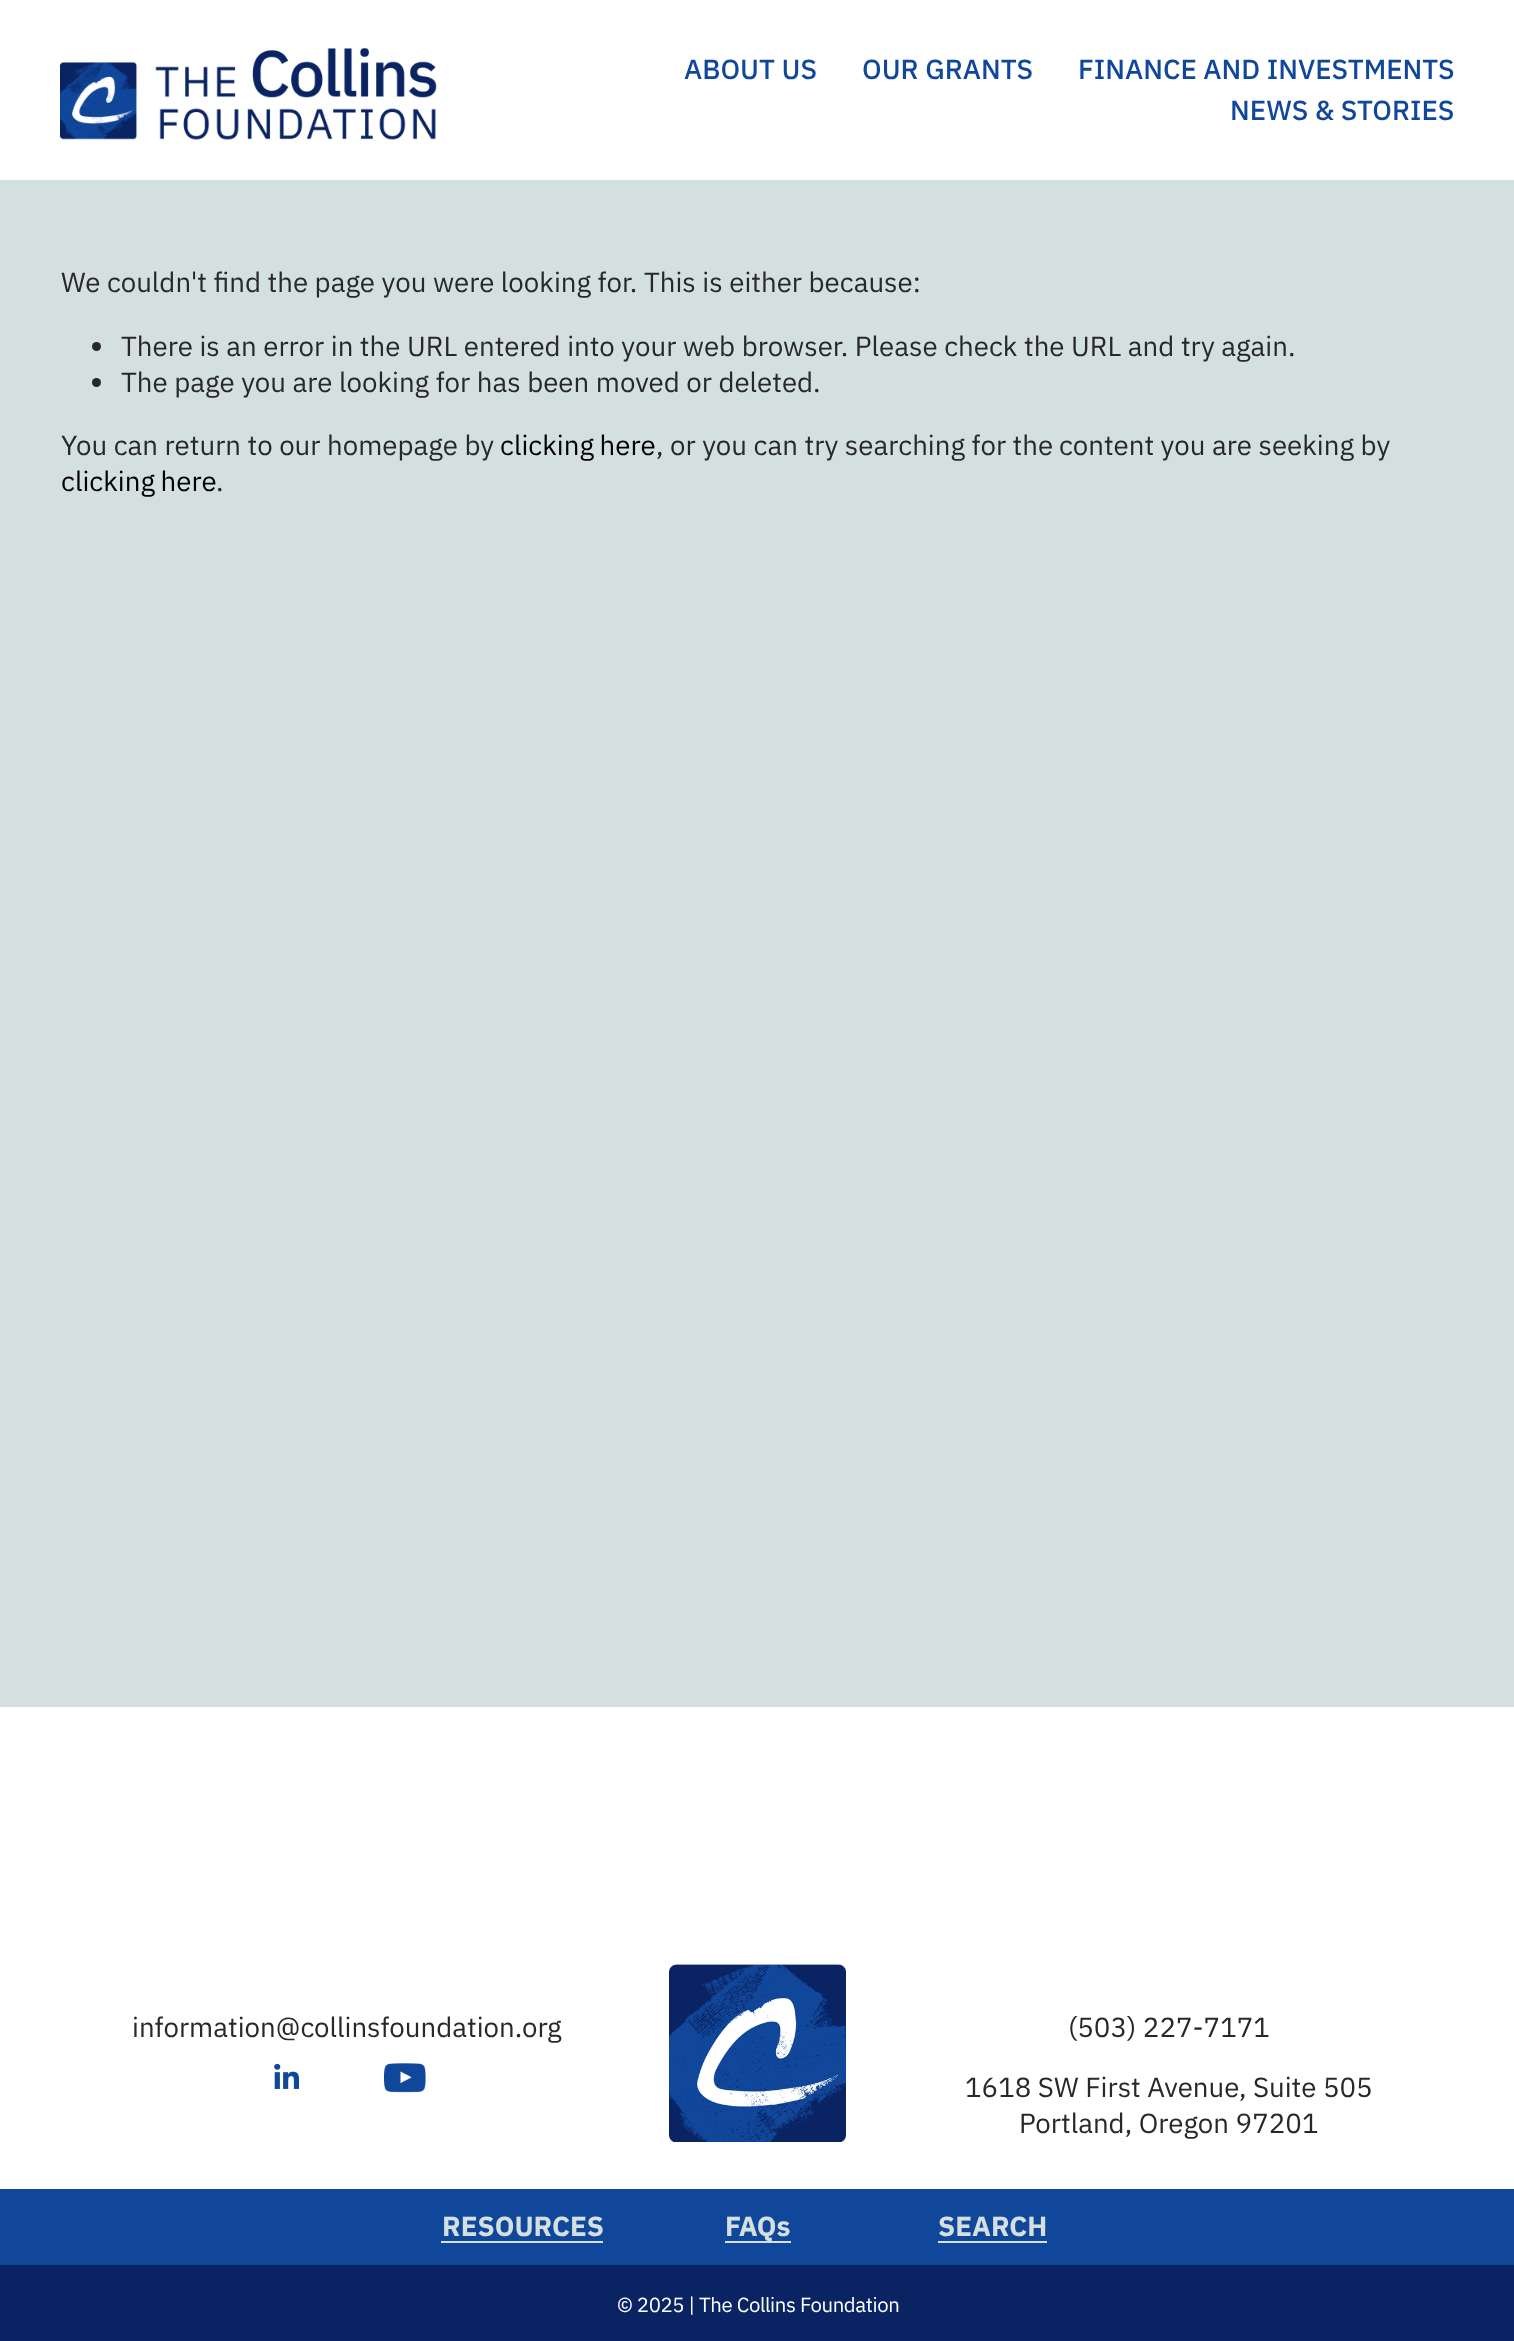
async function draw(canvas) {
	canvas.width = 1514;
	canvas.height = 2341;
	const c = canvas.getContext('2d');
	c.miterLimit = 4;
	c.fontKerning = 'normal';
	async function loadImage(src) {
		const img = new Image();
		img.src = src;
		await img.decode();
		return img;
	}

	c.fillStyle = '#d4e0e0';
	c.fillRect(0, 0, 1514, 2341);
	c.fillStyle = '#fff';
	c.fillRect(0, 0, 1514, 180);
	c.drawImage(await loadImage('img1.png'), 60, 47, 377, 93);
	c.font = '500 27.65px IBM Plex Sans';
	c.fillStyle = '#11479b';
	for (const [text, x, y] of [
		['ABOUT US', 684, 79],
		['OUR GRANTS', 862, 79],
		['FINANCE AND INVESTMENTS', 1078, 79],
		['NEWS & STORIES', 1230, 120],
	]) {
		c.fillText(text, x, y);
	}
	c.font = '27.65px IBM Plex Sans';
	c.fillStyle = '#282828';
	c.fillText('We couldn\'t find the page you were looking for. This is either because:', 61, 292);
	c.beginPath();
	c.arc(96.5, 346.5, 4.5, 0, 2 * Math.PI);
	c.fill();
	c.fillText('There is an error in the URL entered into your web browser. Please check the URL and try again.', 121, 356);
	c.beginPath();
	c.arc(96.5, 382.5, 4.5, 0, 2 * Math.PI);
	c.fill();
	c.fillText('The page you are looking for has been moved or deleted.', 121, 392);
	c.fillText('You can return to our homepage by', 61, 455);
	c.wordSpacing = '-1px';
	c.fillStyle = '#000';
	c.fillText('clicking here', 500, 455);
	c.wordSpacing = '0px';
	c.fillStyle = '#282828';
	c.fillText(', or you can try searching for the', 656, 455);
	c.fillText('content you are seeking by', 1059, 455);
	c.wordSpacing = '-1px';
	c.fillStyle = '#000';
	c.fillText('clicking here', 61, 491);
	c.wordSpacing = '0px';
	c.fillStyle = '#282828';
	c.fillText('.', 216, 491);
	c.fillStyle = '#fff';
	c.fillRect(0, 1707, 1514, 482);
	c.fillStyle = '#282828';
	c.fillText('information@collinsfoundation.org', 132, 2037);
	c.drawImage(await loadImage('img2.png'), 669, 1964, 177, 178);
	for (const [text, x, y] of [
		['(503) 227-7171', 1068, 2037],
		['1618 SW First Avenue, Suite 505', 965, 2097],
		['Portland, Oregon 97201', 1019, 2133],
	]) {
		c.fillText(text, x, y);
	}
	c.drawImage(await loadImage('img3.png'), 274, 2063, 25, 26);
	c.drawImage(await loadImage('img4.png'), 384, 2063, 42, 30);
	c.fillStyle = '#11479b';
	c.fillRect(0, 2189, 1514, 76);
	c.font = 'bold 27.65px IBM Plex Sans';
	c.fillStyle = '#d4e0e0';
	c.fillText('RESOURCES', 442, 2236);
	c.fillRect(441, 2241, 162, 2);
	c.fillRect(725, 2241, 66, 2);
	c.fillText('FAQs', 725, 2236);
	c.fillText('SEARCH', 938, 2236);
	c.fillRect(938, 2241, 109, 2);
	c.fillStyle = '#0a2463';
	c.fillRect(0, 2265, 1514, 76);
	c.letterSpacing = '-0.4px';
	c.font = '20.4px IBM Plex Sans';
	c.fillStyle = '#fff';
	c.fillText('© 2025 | The Collins Foundation', 617, 2312);
}

draw(document.querySelector('canvas'));
